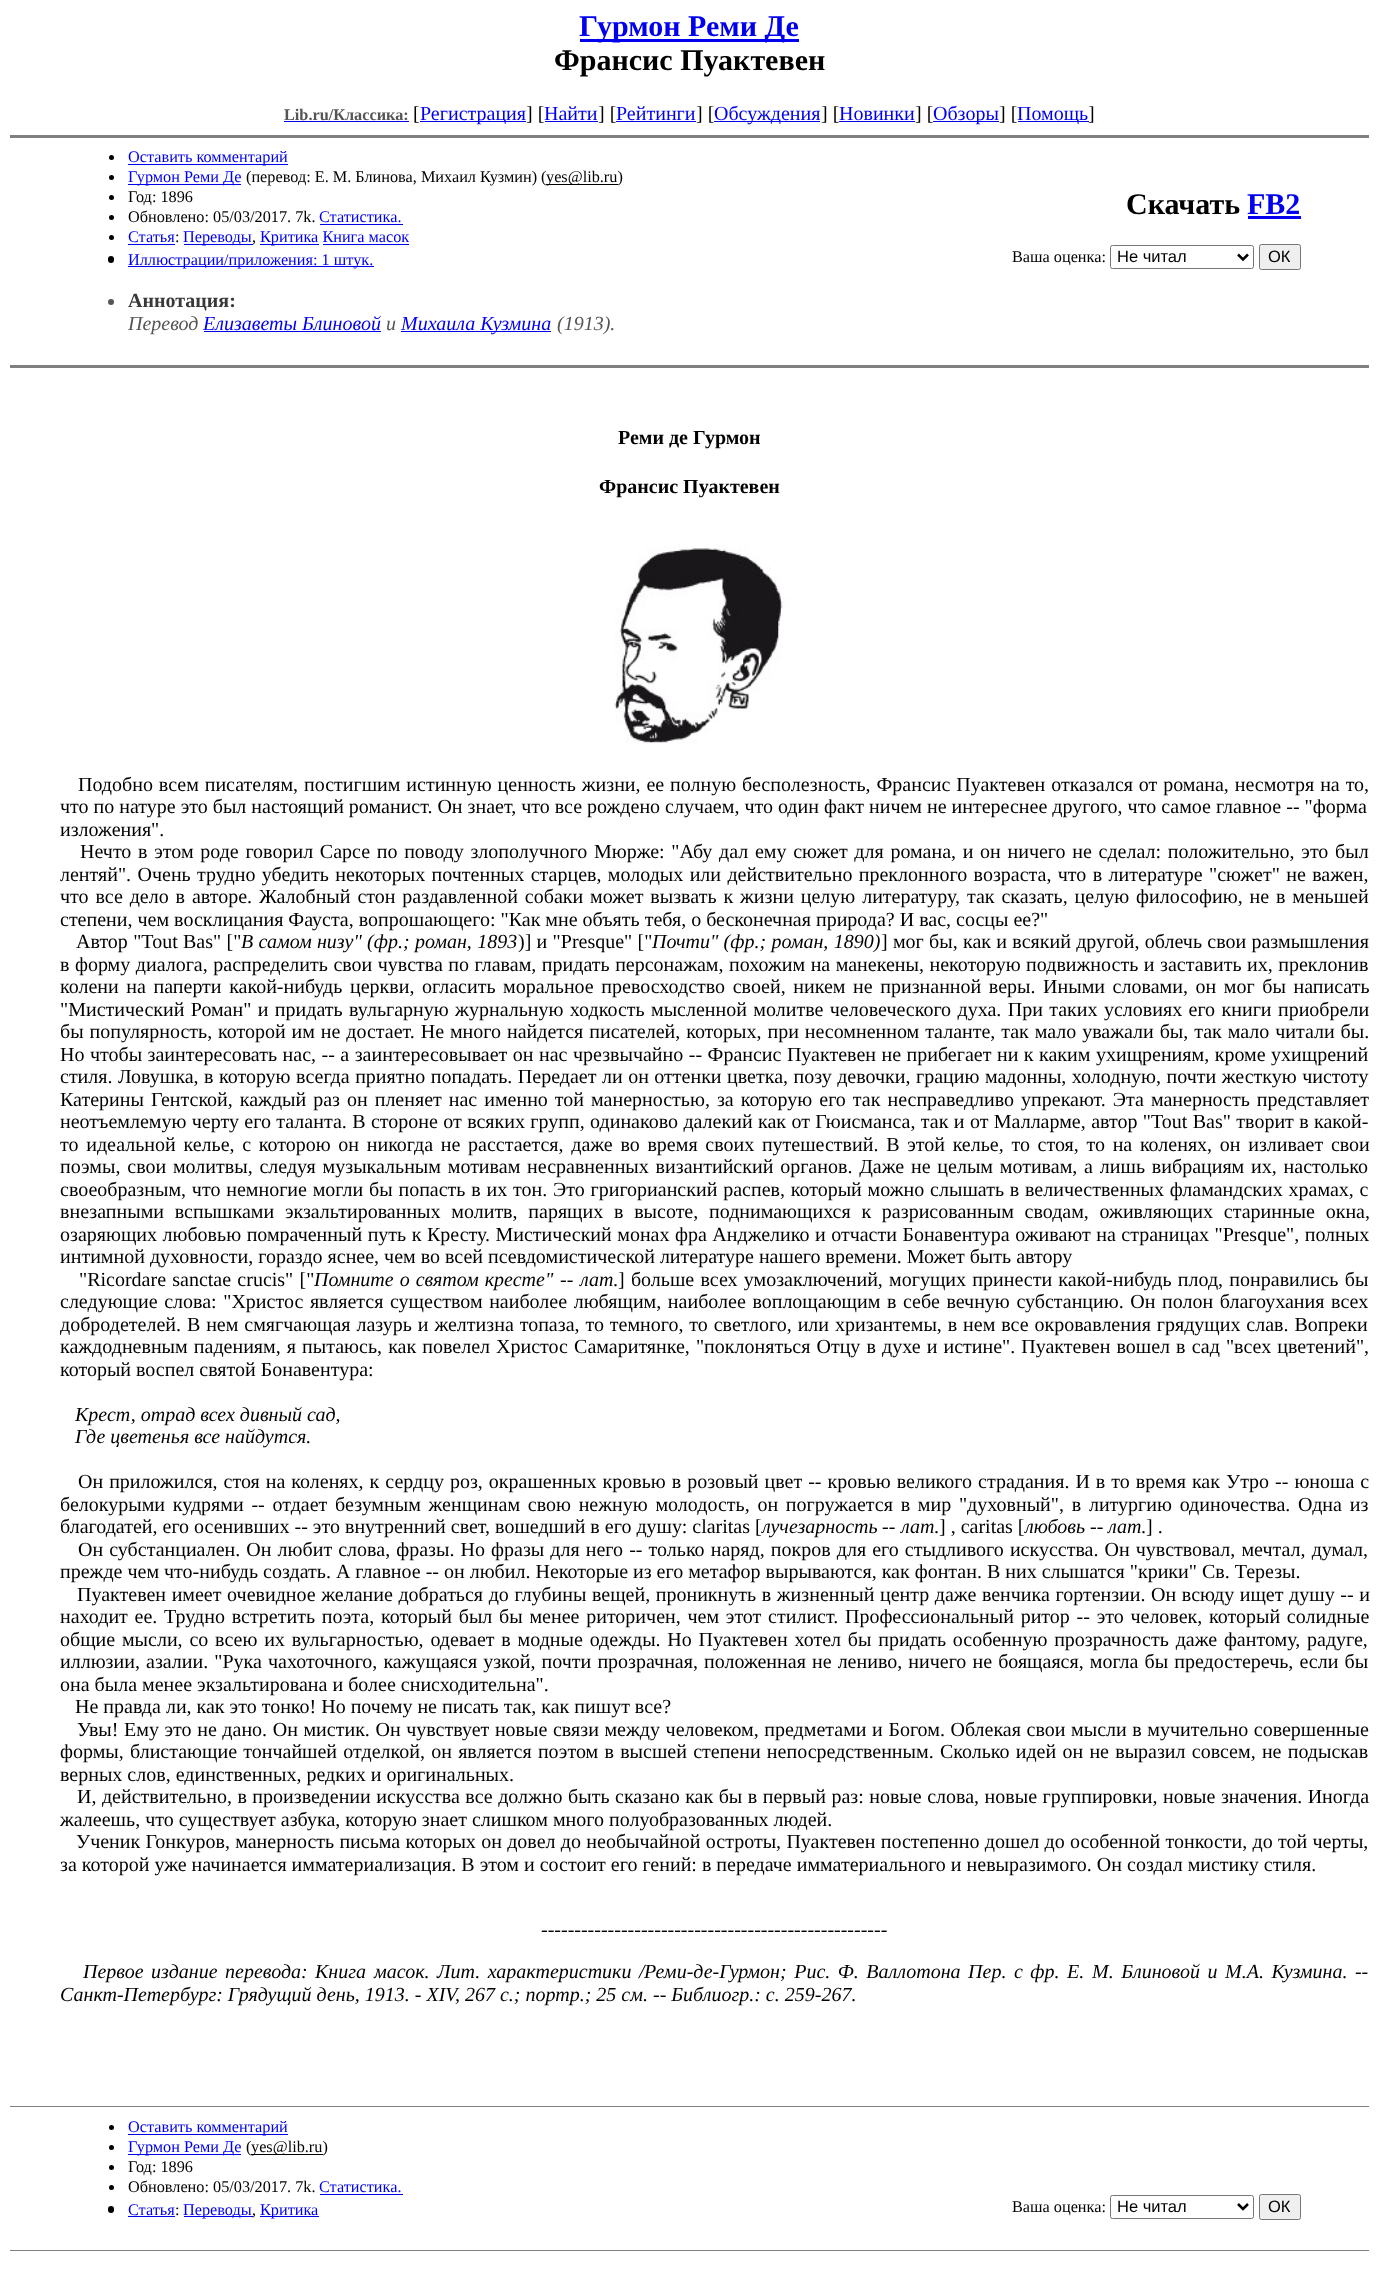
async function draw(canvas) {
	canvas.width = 1378;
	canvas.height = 2271;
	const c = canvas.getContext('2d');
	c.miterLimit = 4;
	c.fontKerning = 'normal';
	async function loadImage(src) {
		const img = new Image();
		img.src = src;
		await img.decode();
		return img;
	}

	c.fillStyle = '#fff';
	c.fillRect(0, 0, 1378, 2271);
	c.fillStyle = '#00e';
	c.fillRect(580, 39, 219, 3);
	c.font = 'bold 30px Liberation Serif';
	c.fillText('Гурмон Реми Де', 579, 36);
	c.fillStyle = '#000';
	c.fillText('Франсис Пуактевен', 554, 70);
	c.font = 'bold 16.25px Liberation Serif';
	c.fillStyle = '#555';
	c.fillText('Lib.ru/Классика:', 284, 120);
	c.fillStyle = '#00e';
	c.fillRect(284, 121, 125, 1);
	c.font = '20px Liberation Serif';
	c.fillStyle = '#000';
	c.fillText('[', 413, 120);
	c.fillStyle = '#00e';
	c.fillRect(420, 121, 106, 1);
	c.fillText('Регистрация', 420, 120);
	c.fillStyle = '#000';
	c.fillText('] [', 526, 120);
	c.fillStyle = '#00e';
	c.fillText('Найти', 544, 120);
	c.fillStyle = '#000';
	c.fillText('] [', 598, 120);
	c.fillStyle = '#00e';
	c.fillRect(545, 121, 53, 1);
	c.fillRect(616, 121, 80, 1);
	c.fillText('Рейтинги', 616, 120);
	c.fillStyle = '#000';
	c.fillText('] [', 696, 120);
	c.fillStyle = '#00e';
	c.fillRect(714, 121, 106, 1);
	c.fillText('Обсуждения', 714, 120);
	c.fillStyle = '#000';
	c.fillText('] [', 821, 120);
	c.fillStyle = '#00e';
	c.fillRect(839, 121, 76, 1);
	c.fillText('Новинки', 839, 120);
	c.fillStyle = '#000';
	c.fillText('] [', 915, 120);
	c.fillStyle = '#00e';
	c.fillRect(933, 121, 66, 1);
	c.fillText('Обзоры', 933, 120);
	c.fillStyle = '#000';
	c.fillText('] [', 999, 120);
	c.fillStyle = '#00e';
	c.fillRect(1018, 121, 71, 1);
	c.fillText('Помощь', 1017, 120);
	c.fillStyle = '#000';
	c.fillText(']', 1088, 120);
	c.fillStyle = '#808080';
	c.fillRect(10, 135, 1359, 3);
	c.fillStyle = '#000';
	c.beginPath();
	c.arc(111.5, 157.5, 2.5, 0, 2 * Math.PI);
	c.fill();
	c.fillStyle = '#00e';
	c.fillRect(128, 164, 160, 1);
	c.font = '16.25px Liberation Serif';
	c.fillText('Оставить комментарий', 128, 162);
	c.fillStyle = '#000';
	c.beginPath();
	c.arc(111.5, 177.5, 2.5, 0, 2 * Math.PI);
	c.fill();
	c.fillStyle = '#00e';
	c.fillRect(128, 184, 113, 1);
	c.fillText('Гурмон Реми Де', 128, 182);
	c.fillStyle = '#000';
	c.fillText('(перевод: Е. М. Блинова, Михаил Кузмин) (', 246, 182);
	c.fillRect(546, 184, 72, 1);
	c.fillText('yes@lib.ru)', 546, 182);
	c.beginPath();
	c.arc(111.5, 197.5, 2.5, 0, 2 * Math.PI);
	c.fill();
	c.fillText('Год: 1896', 128, 202);
	c.beginPath();
	c.arc(111.5, 217.5, 2.5, 0, 2 * Math.PI);
	c.fill();
	c.fillText('Обновлено: 05/03/2017. 7k.', 128, 222);
	c.fillStyle = '#00e';
	c.fillText('Статистика.', 319, 222);
	c.fillRect(320, 224, 83, 1);
	c.fillStyle = '#000';
	c.beginPath();
	c.arc(111.5, 237.5, 2.5, 0, 2 * Math.PI);
	c.fill();
	c.fillStyle = '#00e';
	c.fillText('Статья', 128, 242);
	c.fillRect(128, 244, 47, 1);
	c.fillStyle = '#000';
	c.fillText(':', 175, 242);
	c.fillStyle = '#00e';
	c.fillRect(184, 244, 69, 1);
	c.fillText('Переводы', 183, 242);
	c.fillRect(260, 244, 59, 1);
	c.fillText('Критика Книга масок', 260, 242);
	c.fillStyle = '#000';
	c.fillText(',', 252, 242);
	c.fillStyle = '#00e';
	c.fillRect(323, 244, 86, 1);
	c.fillStyle = '#000';
	c.beginPath();
	c.roundRect(108, 256, 6, 7, 3);
	c.fill();
	c.fillStyle = '#00e';
	c.fillRect(128, 266, 246, 1);
	c.fillText('Иллюстрации/приложения: 1 штук.', 128, 265);
	c.font = 'bold 30px Liberation Serif';
	c.fillStyle = '#000';
	c.fillText('Скачать', 1126, 214);
	c.fillStyle = '#00e';
	c.fillText('FB2', 1247, 214);
	c.fillRect(1248, 216, 53, 3);
	c.font = '16.25px Liberation Serif';
	c.fillStyle = '#000';
	c.fillText('Ваша оценка:', 1012, 262);
	c.beginPath();
	c.roundRect(1110.5, 245.5, 143, 23, 2);
	c.strokeStyle = '#767676';
	c.stroke();
	c.beginPath();
	c.moveTo(1238, 254.5);
	c.lineTo(1243, 259.5);
	c.lineTo(1248, 254.5);
	c.strokeStyle = '#000';
	c.lineWidth = 2.5;
	c.stroke();
	c.font = '16.5px Liberation Sans';
	c.fillText('Не читал', 1117, 262);
	c.fillStyle = '#efefef';
	c.beginPath();
	c.roundRect(1259.5, 244.5, 41, 25, 2);
	c.fill();
	c.strokeStyle = '#767676';
	c.lineWidth = 1;
	c.stroke();
	c.fillStyle = '#000';
	c.fillText('ОК', 1268, 262);
	c.fillStyle = '#555';
	c.beginPath();
	c.arc(111, 302, 3, 0, 2 * Math.PI);
	c.fill();
	c.font = 'bold 20px Liberation Serif';
	c.fillStyle = '#393939';
	c.fillText('Аннотация:', 128, 307);
	c.font = 'italic 20px Liberation Serif';
	c.fillStyle = '#555';
	c.fillText('Перевод', 128, 330);
	c.fillStyle = '#00e';
	c.fillText('Елизаветы Блиновой', 203, 330);
	c.fillRect(204, 331, 177, 1);
	c.fillStyle = '#555';
	c.fillText('и', 386, 330);
	c.fillStyle = '#00e';
	c.fillRect(401, 331, 150, 1);
	c.fillText('Михаила Кузмина', 401, 330);
	c.fillStyle = '#555';
	c.fillText('(1913).', 557, 330);
	c.fillStyle = '#808080';
	c.fillRect(10, 365, 1359, 3);
	c.font = 'bold 20px Liberation Serif';
	c.fillStyle = '#000';
	c.fillText('Реми де Гурмон', 618, 444);
	c.fillText('Франсис Пуактевен', 599, 493);
	c.drawImage(await loadImage('img1.png'), 614, 546, 177, 197);
	c.wordSpacing = '0.9px';
	c.font = '20px Liberation Serif';
	c.fillText('Подобно всем писателям, постигшим истинную ценность жизни, ее полную бесполезность, Франсис Пуактевен отказался от романа, несмотря на то,', 78, 791);
	c.wordSpacing = '0px';
	c.fillText('что по натуре это был настоящий романист. Он знает, что все рождено случаем, что один факт ничем не интереснее другого, что самое главное -- "форма', 60, 813);
	c.fillText('изложения".', 60, 836);
	c.wordSpacing = '1.7px';
	c.fillText('Нечто в этом роде говорил Сарсе по поводу злополучного Мюрже: "Абу дал ему сюжет для романа, и он ничего не сделал: положительно, это был', 80, 858);
	c.wordSpacing = '1.4px';
	c.fillText('лентяй". Очень трудно убедить некоторых почтенных старцев, молодых или действительно преклонного возраста, что в литературе "сюжет" не важен,', 60, 881);
	c.wordSpacing = '1.9px';
	c.fillText('что все дело в авторе. Жалобный стон раздавленной собаки может вызвать к жизни целую литературу, так сказать, целую философию, не в меньшей', 60, 903);
	c.wordSpacing = '0px';
	c.fillText('степени, чем восклицания Фауста, вопрошающего: "Как мне объять тебя, о бесконечная природа? И вас, сосцы ее?"', 60, 926);
	c.wordSpacing = '0.3px';
	c.fillText('Автор "Tout Bas" ["', 76, 948);
	c.font = 'italic 20px Liberation Serif';
	c.fillText('В самом низу" (фр.; роман, 1893', 241, 948);
	c.font = '20px Liberation Serif';
	c.fillText(')] и "Presque" ["', 518, 948);
	c.font = 'italic 20px Liberation Serif';
	c.fillText('Почти" (фр.; роман, 1890)', 652, 948);
	c.font = '20px Liberation Serif';
	c.fillText('] мог бы, как и всякий другой, облечь свои размышления', 881, 948);
	c.wordSpacing = '0.5px';
	c.fillText('в форму диалога, распределить свои чувства по главам, придать персонажам, похожим на манекены, некоторую подвижность и заставить их, преклонив', 60, 971);
	c.wordSpacing = '2.6px';
	c.fillText('колени на паперти какой-нибудь церкви, огласить моральное превосходство своей, никем не признанной веры. Иными словами, он мог бы написать', 60, 993);
	c.wordSpacing = '1.4px';
	c.fillText('"Мистический Роман" и придать вульгарную журнальную ходкость мысленной молитве человеческого духа. При таких условиях его книги приобрели', 60, 1016);
	c.wordSpacing = '0.9px';
	c.fillText('бы популярность, которой им не достает. Не много найдется писателей, которых, при несомненном таланте, так мало уважали бы, так мало читали бы.', 60, 1038);
	c.wordSpacing = '0.5px';
	c.fillText('Но чтобы заинтересовать нас, -- а заинтересовывает он нас чрезвычайно -- Франсис Пуактевен не прибегает ни к каким ухищрениям, кроме ухищрений', 60, 1061);
	c.fillText('стиля. Ловушка, в которую всегда приятно попадать. Передает ли он оттенки цветка, позу девочки, грацию мадонны, холодную, почти жесткую чистоту', 60, 1083);
	c.wordSpacing = '2px';
	c.fillText('Катерины Гентской, каждый раз он пленяет нас именно той манерностью, за которую его так несправедливо упрекают. Эта манерность представляет', 60, 1106);
	c.wordSpacing = '0.4px';
	c.fillText('неотъемлемую черту его таланта. В стороне от всяких групп, одинаково далекий как от Гюисманса, так и от Малларме, автор "Tout Bas" творит в какой-', 60, 1128);
	c.wordSpacing = '2.7px';
	c.fillText('то идеальной келье, с которою он никогда не расстается, даже во время своих путешествий. В этой келье, то стоя, то на коленях, он изливает свои', 60, 1151);
	c.wordSpacing = '1.8px';
	c.fillText('поэмы, свои молитвы, следуя музыкальным мотивам несравненных византийский органов. Даже не целым мотивам, а лишь вибрациям их, настолько', 60, 1173);
	c.wordSpacing = '0.8px';
	c.fillText('своеобразным, что немногие могли бы попасть в их тон. Это григорианский распев, который можно слышать в величественных фламандских храмах, с', 60, 1196);
	c.wordSpacing = '5.75px';
	c.fillText('внезапными вспышками экзальтированных молитв, парящих в высоте, поднимающихся к разрисованным сводам, оживляющих старинные окна,', 60, 1218);
	c.wordSpacing = '0.5px';
	c.fillText('озаряющих любовью помраченный путь к Кресту. Мистический монах фра Анджелико и отчасти Бонавентура оживают на страницах "Presque", полных', 60, 1241);
	c.wordSpacing = '0px';
	c.fillText('интимной духовности, гораздо яснее, чем во всей псевдомистической литературе нашего времени. Может быть автору', 60, 1263);
	c.wordSpacing = '1.25px';
	c.fillText('"Ricordare sanctae crucis" ["', 79, 1286);
	c.wordSpacing = '1px';
	c.font = 'italic 20px Liberation Serif';
	c.fillText('Помните о святом кресте"', 314, 1286);
	c.wordSpacing = '0px';
	c.font = '20px Liberation Serif';
	c.fillText('--', 560, 1286);
	c.font = 'italic 20px Liberation Serif';
	c.fillText('лат', 580, 1286);
	c.wordSpacing = '1.25px';
	c.font = '20px Liberation Serif';
	c.fillText('.] больше всех умозаключений, могущих принести какой-нибудь плод, понравились бы', 613, 1286);
	c.wordSpacing = '1.6px';
	c.fillText('следующие слова: "Христос является существом наиболее любящим, наиболее воплощающим в себе вечную субстанцию. Он полон благоухания всех', 60, 1308);
	c.wordSpacing = '0.9px';
	c.fillText('добродетелей. В нем смягчающая лазурь и желтизна топаза, то темного, то светлого, или хризантемы, в нем все окровавления грядущих слав. Вопреки', 60, 1331);
	c.wordSpacing = '1.1px';
	c.fillText('каждодневным падениям, я пытаюсь, как повелел Христос Самаритянке, "поклоняться Отцу в духе и истине". Пуактевен вошел в сад "всех цветений",', 60, 1353);
	c.wordSpacing = '0px';
	c.fillText('который воспел святой Бонавентура:', 60, 1376);
	c.font = 'italic 20px Liberation Serif';
	c.fillText('Крест, отрад всех дивный сад,', 75, 1421);
	c.fillText('Где цветенья все найдутся.', 75, 1443);
	c.wordSpacing = '1px';
	c.font = '20px Liberation Serif';
	c.fillText('Он приложился, стоя на коленях, к сердцу роз, окрашенных кровью в розовый цвет -- кровью великого страдания. И в то время как Утро -- юноша с', 78, 1488);
	c.wordSpacing = '2.75px';
	c.fillText('белокурыми кудрями -- отдает безумным женщинам свою нежную молодость, он погружается в мир "духовный", в литургию одиночества. Одна из', 60, 1511);
	c.wordSpacing = '0px';
	c.fillText('благодатей, его осенивших -- это внутренний свет, вошедший в его душу: claritas [', 60, 1533);
	c.font = 'italic 20px Liberation Serif';
	c.fillText('лучезарность', 762, 1533);
	c.font = '20px Liberation Serif';
	c.fillText('--', 882, 1533);
	c.font = 'italic 20px Liberation Serif';
	c.fillText('лат', 901, 1533);
	c.font = '20px Liberation Serif';
	c.fillText('.] , caritas [', 934, 1533);
	c.font = 'italic 20px Liberation Serif';
	c.fillText('любовь', 1025, 1533);
	c.font = '20px Liberation Serif';
	c.fillText('--', 1090, 1533);
	c.font = 'italic 20px Liberation Serif';
	c.fillText('лат', 1108, 1533);
	c.font = '20px Liberation Serif';
	c.fillText('.] .', 1141, 1533);
	c.wordSpacing = '1.1px';
	c.fillText('Он субстанциален. Он любит слова, фразы. Но фразы для него -- только наряд, покров для его стыдливого искусства. Он чувствовал, мечтал, думал,', 78, 1556);
	c.wordSpacing = '0px';
	c.fillText('прежде чем что-нибудь создать. А главное -- он любил. Некоторые из его метафор вырываются, как фонтан. В них слышатся "крики" Св. Терезы.', 60, 1578);
	c.wordSpacing = '0.6px';
	c.fillText('Пуактевен имеет очевидное желание добраться до глубины вещей, проникнуть в жизненный центр даже венчика гортензии. Он всюду ищет душу -- и', 77, 1601);
	c.wordSpacing = '1.75px';
	c.fillText('находит ее. Трудно встретить поэта, который был бы менее риторичен, чем этот стилист. Профессиональный ритор -- это человек, который солидные', 60, 1623);
	c.wordSpacing = '1.8px';
	c.fillText('общие мысли, со всею их вульгарностью, одевает в модные одежды. Но Пуактевен хотел бы придать особенную прозрачность даже фантому, радуге,', 60, 1646);
	c.wordSpacing = '1.1px';
	c.fillText('иллюзии, азалии. "Рука чахоточного, кажущаяся узкой, почти прозрачная, положенная не лениво, ничего не боящаяся, могла бы предостеречь, если бы', 60, 1668);
	c.wordSpacing = '0px';
	c.fillText('она была менее экзальтирована и более снисходительна".', 60, 1691);
	c.fillText('Не правда ли, как это тонко! Но почему не писать так, как пишут все?', 75, 1713);
	c.wordSpacing = '0.6px';
	c.fillText('Увы! Ему это не дано. Он мистик. Он чувствует новые связи между человеком, предметами и Богом. Облекая свои мысли в мучительно совершенные', 77, 1736);
	c.wordSpacing = '1.25px';
	c.fillText('формы, блистающие тончайшей отделкой, он является поэтом в высшей степени непосредственным. Сколько идей он не выразил совсем, не подыскав', 60, 1758);
	c.wordSpacing = '0px';
	c.fillText('верных слов, единственных, редких и оригинальных.', 60, 1781);
	c.wordSpacing = '0.5px';
	c.fillText('И, действительно, в произведении искусства все должно быть сказано как бы в первый раз: новые слова, новые группировки, новые значения. Иногда', 77, 1803);
	c.wordSpacing = '0px';
	c.fillText('жалеешь, что существует азбука, которую знает слишком много полуобразованных людей.', 60, 1826);
	c.wordSpacing = '0.3px';
	c.fillText('Ученик Гонкуров, манерность письма которых он довел до необычайной остроты, Пуактевен постепенно дошел до особенной тонкости, до той черты,', 76, 1848);
	c.wordSpacing = '0px';
	c.fillText('за которой уже начинается имматериализация. В этом и состоит его гений: в передаче имматериального и невыразимого. Он создал мистику стиля.', 60, 1871);
	c.fillText('----------------------------------------------------', 541, 1936);
	c.wordSpacing = '2.5px';
	c.font = 'italic 20px Liberation Serif';
	c.fillText('Первое издание перевода:', 83, 1978);
	c.wordSpacing = '0px';
	c.fillText('Книга', 315, 1978);
	c.fillText('масок.', 374, 1978);
	c.wordSpacing = '2.5px';
	c.fillText('Лит. характеристики /', 437, 1978);
	c.wordSpacing = '0px';
	c.fillText('Реми-де-Гурмон', 644, 1978);
	c.wordSpacing = '2.5px';
	c.fillText('; Рис. Ф. Валлотона Пер. с фр. Е.', 780, 1978);
	c.fillText('М. Блиновой и М.А. Кузмина. --', 1092, 1978);
	c.wordSpacing = '0px';
	c.fillText('Санкт-Петербург: Грядущий день, 1913. - XIV, 267 с.; портр.; 25 см. -- Библиогр.: с. 259-267.', 60, 2001);
	c.fillStyle = '#808080';
	c.fillRect(10, 2106, 1359, 1);
	c.fillStyle = '#000';
	c.beginPath();
	c.arc(111.5, 2127.5, 2.5, 0, 2 * Math.PI);
	c.fill();
	c.fillStyle = '#00e';
	c.fillRect(128, 2134, 160, 1);
	c.font = '16.25px Liberation Serif';
	c.fillText('Оставить комментарий', 128, 2132);
	c.fillStyle = '#000';
	c.beginPath();
	c.arc(111.5, 2147.5, 2.5, 0, 2 * Math.PI);
	c.fill();
	c.fillStyle = '#00e';
	c.fillRect(128, 2154, 113, 1);
	c.fillText('Гурмон Реми Де', 128, 2152);
	c.fillStyle = '#000';
	c.fillText('(', 246, 2152);
	c.fillRect(251, 2154, 72, 1);
	c.fillText('yes@lib.ru)', 251, 2152);
	c.beginPath();
	c.arc(111.5, 2167.5, 2.5, 0, 2 * Math.PI);
	c.fill();
	c.fillText('Год: 1896', 128, 2172);
	c.beginPath();
	c.arc(111.5, 2187.5, 2.5, 0, 2 * Math.PI);
	c.fill();
	c.fillText('Обновлено: 05/03/2017. 7k.', 128, 2192);
	c.fillStyle = '#00e';
	c.fillText('Статистика.', 319, 2192);
	c.fillRect(320, 2194, 83, 1);
	c.fillStyle = '#000';
	c.beginPath();
	c.roundRect(108, 2206, 6, 7, 3);
	c.fill();
	c.fillStyle = '#00e';
	c.fillText('Статья', 128, 2215);
	c.fillStyle = '#000';
	c.fillText(':', 175, 2215);
	c.fillStyle = '#00e';
	c.fillRect(128, 2216, 47, 1);
	c.fillRect(184, 2216, 69, 1);
	c.fillText('Переводы', 183, 2215);
	c.fillStyle = '#000';
	c.fillText(',', 252, 2215);
	c.fillStyle = '#00e';
	c.fillRect(260, 2216, 59, 1);
	c.fillText('Критика', 260, 2215);
	c.fillStyle = '#000';
	c.fillText('Ваша оценка:', 1012, 2212);
	c.beginPath();
	c.roundRect(1110.5, 2195.5, 143, 23, 2);
	c.stroke();
	c.beginPath();
	c.moveTo(1238, 2204);
	c.lineTo(1243, 2209);
	c.lineTo(1248, 2204);
	c.strokeStyle = '#000';
	c.lineWidth = 2.5;
	c.stroke();
	c.font = '16.5px Liberation Sans';
	c.fillText('Не читал', 1117, 2212);
	c.fillStyle = '#efefef';
	c.beginPath();
	c.roundRect(1259.5, 2194.5, 41, 25, 2);
	c.fill();
	c.strokeStyle = '#767676';
	c.lineWidth = 1;
	c.stroke();
	c.fillStyle = '#000';
	c.fillText('ОК', 1268, 2212);
	c.fillStyle = '#808080';
	c.fillRect(10, 2250, 1359, 1);
}

draw(document.querySelector('canvas'));
